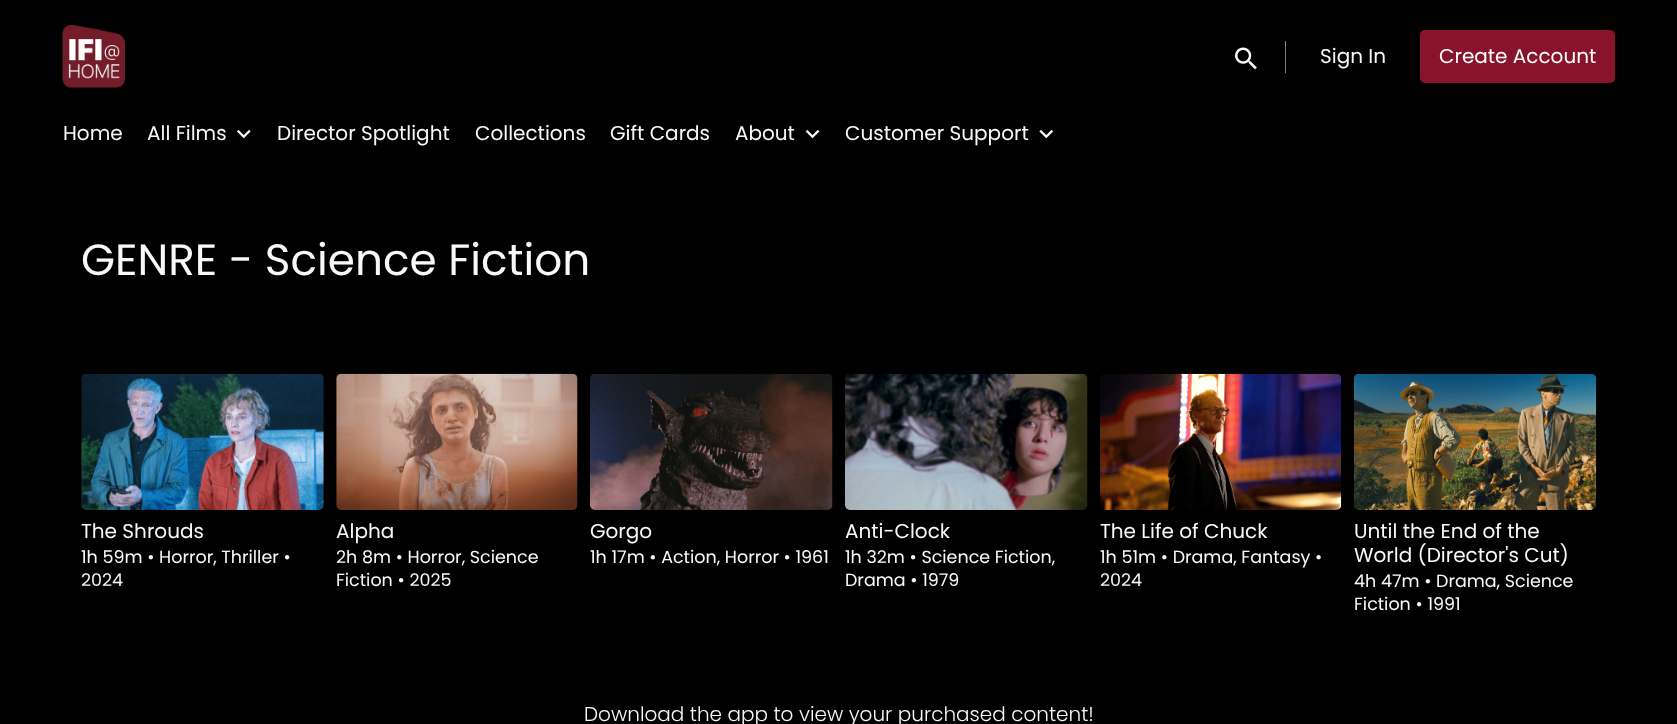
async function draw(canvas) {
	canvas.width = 1677;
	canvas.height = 724;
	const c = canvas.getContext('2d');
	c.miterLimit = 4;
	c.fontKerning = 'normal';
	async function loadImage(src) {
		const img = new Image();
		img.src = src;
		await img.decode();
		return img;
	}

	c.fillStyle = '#000';
	c.fillRect(0, 0, 1677, 724);
	c.drawImage(await loadImage('img1.png'), 62, 25, 63, 63);
	c.drawImage(await loadImage('img2.png'), 1235, 47, 22, 23);
	c.fillStyle = '#7c7c7c';
	c.fillRect(1285, 41, 1, 32);
	c.font = '20px Poppins';
	c.fillStyle = '#f8f8f8';
	c.fillText('Sign In', 1320, 63);
	c.fillStyle = '#88132a';
	c.beginPath();
	c.roundRect(1420, 30, 195, 53, 5);
	c.fill();
	c.fillStyle = '#fff';
	c.fillText('Create Account', 1439, 63);
	c.fillStyle = '#f8f8f8';
	c.fillText('Home', 63, 140);
	c.fillText('All Films', 147, 140);
	c.drawImage(await loadImage('img3.png'), 237, 129, 14, 10);
	for (const [text, x, y] of [
		['Director Spotlight', 277, 140],
		['Collections', 475, 140],
		['Gift Cards', 610, 140],
		['About', 735, 140],
	]) {
		c.fillText(text, x, y);
	}
	c.drawImage(await loadImage('img4.png'), 805, 129, 15, 10);
	c.fillText('Customer Support', 845, 140);
	c.drawImage(await loadImage('img5.png'), 1039, 129, 14, 10);
	c.font = '43.75px Poppins';
	c.fillText('GENRE - Science Fiction', 81, 275);
	c.drawImage(await loadImage('img6.png'), 81, 373, 243, 137);
	c.font = '20px Poppins';
	c.fillText('The Shrouds', 81, 538);
	c.font = '17.5px Poppins';
	c.fillText('1h 59m • Horror, Thriller •', 81, 563);
	c.fillText('2024', 81, 586);
	c.drawImage(await loadImage('img7.png'), 336, 373, 242, 137);
	c.font = '20px Poppins';
	c.fillText('Alpha', 336, 538);
	c.font = '17.5px Poppins';
	c.fillText('2h 8m • Horror, Science', 336, 563);
	c.fillText('Fiction • 2025', 336, 586);
	c.drawImage(await loadImage('img8.png'), 590, 374, 243, 136);
	c.font = '20px Poppins';
	c.fillText('Gorgo', 590, 538);
	c.font = '17.5px Poppins';
	c.fillText('1h 17m • Action, Horror • 1961', 590, 563);
	c.drawImage(await loadImage('img9.png'), 845, 373, 243, 137);
	c.font = '20px Poppins';
	c.fillText('Anti-Clock', 845, 538);
	c.font = '17.5px Poppins';
	c.fillText('1h 32m • Science Fiction,', 845, 563);
	c.fillText('Drama • 1979', 845, 586);
	c.drawImage(await loadImage('img10.png'), 1100, 373, 242, 137);
	c.font = '20px Poppins';
	c.fillText('The Life of Chuck', 1100, 538);
	c.font = '17.5px Poppins';
	c.fillText('1h 51m • Drama, Fantasy •', 1100, 563);
	c.fillText('2024', 1100, 586);
	c.drawImage(await loadImage('img11.png'), 1353, 373, 244, 137);
	c.font = '20px Poppins';
	c.fillText('Until the End of the', 1354, 538);
	c.fillText('World (Director\'s Cut)', 1354, 562);
	c.font = '17.5px Poppins';
	c.fillText('4h 47m • Drama, Science', 1354, 587);
	c.fillText('Fiction • 1991', 1354, 610);
	c.font = '300 20px Poppins';
	c.fillText('Download the app to view your purchased content!', 584, 721);
}

draw(document.querySelector('canvas'));
